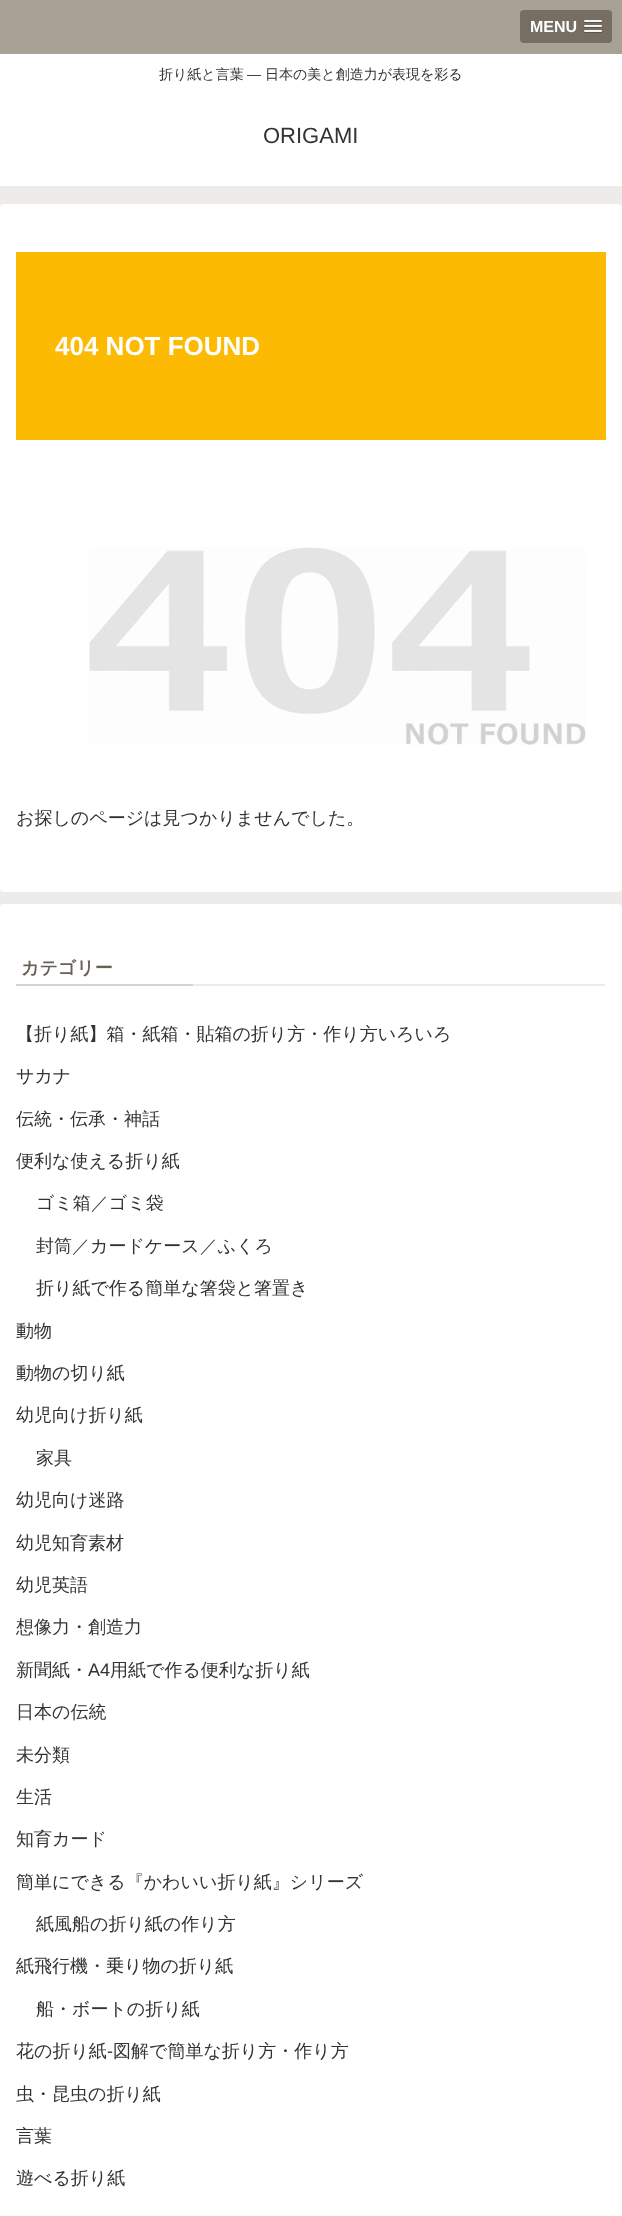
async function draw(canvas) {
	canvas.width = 622;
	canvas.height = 2216;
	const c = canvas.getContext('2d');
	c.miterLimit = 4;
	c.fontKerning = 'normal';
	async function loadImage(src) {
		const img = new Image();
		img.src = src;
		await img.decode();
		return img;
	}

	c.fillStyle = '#edecea';
	c.fillRect(0, 0, 622, 2216);
	c.fillStyle = '#a8a196';
	c.fillRect(0, 0, 622, 54);
	c.fillStyle = '#766e62';
	c.beginPath();
	c.roundRect(520, 10, 92, 33, 4);
	c.fill();
	c.font = 'bold 16px Liberation Sans';
	c.fillStyle = '#fff';
	c.fillText('MENU', 530, 32);
	c.fillStyle = '#59534a';
	c.beginPath();
	c.moveTo(584, 21.5);
	c.bezierCurveTo(583, 23.5, 587.5, 23, 587.5, 23);
	c.lineTo(598.5, 23);
	c.bezierCurveTo(598.5, 23, 603, 23.5, 602, 21.5);
	c.bezierCurveTo(601, 22.5, 594.5, 22, 593, 22);
	c.bezierCurveTo(591.5, 22, 585, 22.5, 584, 21.5);
	c.closePath();
	c.fill();
	c.fillStyle = '#f5f5f5';
	c.beginPath();
	c.roundRect(584, 20, 18, 2, 1);
	c.fill();
	c.fillStyle = '#59534a';
	c.beginPath();
	c.moveTo(584, 26.5);
	c.bezierCurveTo(583, 28.5, 587.5, 28, 587.5, 28);
	c.lineTo(598.5, 28);
	c.bezierCurveTo(598.5, 28, 603, 28.5, 602, 26.5);
	c.bezierCurveTo(601, 27.5, 594.5, 27, 593, 27);
	c.bezierCurveTo(591.5, 27, 585, 27.5, 584, 26.5);
	c.closePath();
	c.fill();
	c.fillStyle = '#f5f5f5';
	c.beginPath();
	c.roundRect(584, 25, 18, 2, 1);
	c.fill();
	c.fillStyle = '#59534a';
	c.beginPath();
	c.moveTo(584, 31.5);
	c.bezierCurveTo(583, 33.5, 587.5, 33, 587.5, 33);
	c.lineTo(598.5, 33);
	c.bezierCurveTo(598.5, 33, 603, 33.5, 602, 31.5);
	c.bezierCurveTo(601, 32.5, 594.5, 32, 593, 32);
	c.bezierCurveTo(591.5, 32, 585, 32.5, 584, 31.5);
	c.closePath();
	c.fill();
	c.fillStyle = '#f5f5f5';
	c.beginPath();
	c.roundRect(584, 30, 18, 2, 1);
	c.fill();
	c.fillStyle = '#fff';
	c.fillRect(0, 54, 622, 132);
	c.font = '500 14px WenQuanYi Zen Hei';
	c.fillStyle = '#333';
	c.fillText('折り紙と言葉', 159, 79);
	c.font = '14px Liberation Sans';
	c.fillText('—', 247, 79);
	c.font = '500 14px WenQuanYi Zen Hei';
	c.fillText('日本の美と創造力が表現を彩る', 265, 79);
	c.font = '22px Liberation Sans';
	c.fillText('ORIGAMI', 263, 143);
	c.fillStyle = '#fff';
	c.beginPath();
	c.roundRect(0, 204, 622, 688, 4);
	c.fill();
	c.fillStyle = '#fcba03';
	c.fillRect(16, 252, 590, 188);
	c.font = 'bold 26px Liberation Sans';
	c.fillStyle = '#fff';
	c.fillText('404 NOT FOUND', 55, 355);
	c.drawImage(await loadImage('img1.png'), 89, 547, 497, 198);
	c.font = '500 18px WenQuanYi Zen Hei';
	c.fillStyle = '#333';
	c.fillText('お探しのページは見つかりませんでした。', 16, 824);
	c.fillStyle = '#fff';
	c.beginPath();
	c.roundRect(0, 904, 622, 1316, 4);
	c.fill();
	c.fillStyle = '#edecea';
	c.fillRect(193, 984, 412, 2);
	c.font = 'bold 18px WenQuanYi Zen Hei';
	c.fillStyle = '#686157';
	c.fillText('カテゴリー', 21, 974);
	c.fillStyle = '#d6d3ce';
	c.fillRect(16, 984, 177, 2);
	c.font = '500 18px WenQuanYi Zen Hei';
	c.fillStyle = '#333';
	for (const [text, x, y] of [
		['【折り紙】箱・紙箱・貼箱の折り方・作り方いろいろ', 16, 1040],
		['サカナ', 16, 1082],
		['伝統・伝承・神話', 16, 1125],
		['便利な使える折り紙', 16, 1167],
		['ゴミ箱／ゴミ袋', 36, 1209],
		['封筒／カードケース／ふくろ', 36, 1252],
		['折り紙で作る簡単な箸袋と箸置き', 36, 1294],
		['動物', 16, 1337],
		['動物の切り紙', 16, 1379],
		['幼児向け折り紙', 16, 1421],
		['家具', 36, 1464],
		['幼児向け迷路', 16, 1506],
		['幼児知育素材', 16, 1549],
		['幼児英語', 16, 1591],
		['想像力・創造力', 16, 1633],
		['新聞紙・', 16, 1676],
	]) {
		c.fillText(text, x, y);
	}
	c.font = '18px Liberation Sans';
	c.fillText('A4', 88, 1676);
	c.font = '500 18px WenQuanYi Zen Hei';
	for (const [text, x, y] of [
		['用紙で作る便利な折り紙', 110, 1676],
		['日本の伝統', 16, 1718],
		['未分類', 16, 1761],
		['生活', 16, 1803],
		['知育カード', 16, 1845],
		['簡単にできる『かわいい折り紙』シリーズ', 16, 1888],
		['紙風船の折り紙の作り方', 36, 1930],
		['紙飛行機・乗り物の折り紙', 16, 1972],
		['船・ボートの折り紙', 36, 2015],
		['花の折り紙', 16, 2057],
	]) {
		c.fillText(text, x, y);
	}
	c.font = '18px Liberation Sans';
	c.fillText('-', 107, 2057);
	c.font = '500 18px WenQuanYi Zen Hei';
	for (const [text, x, y] of [
		['図解で簡単な折り方・作り方', 113, 2057],
		['虫・昆虫の折り紙', 16, 2100],
		['言葉', 16, 2142],
		['遊べる折り紙', 16, 2184],
	]) {
		c.fillText(text, x, y);
	}
}

draw(document.querySelector('canvas'));
